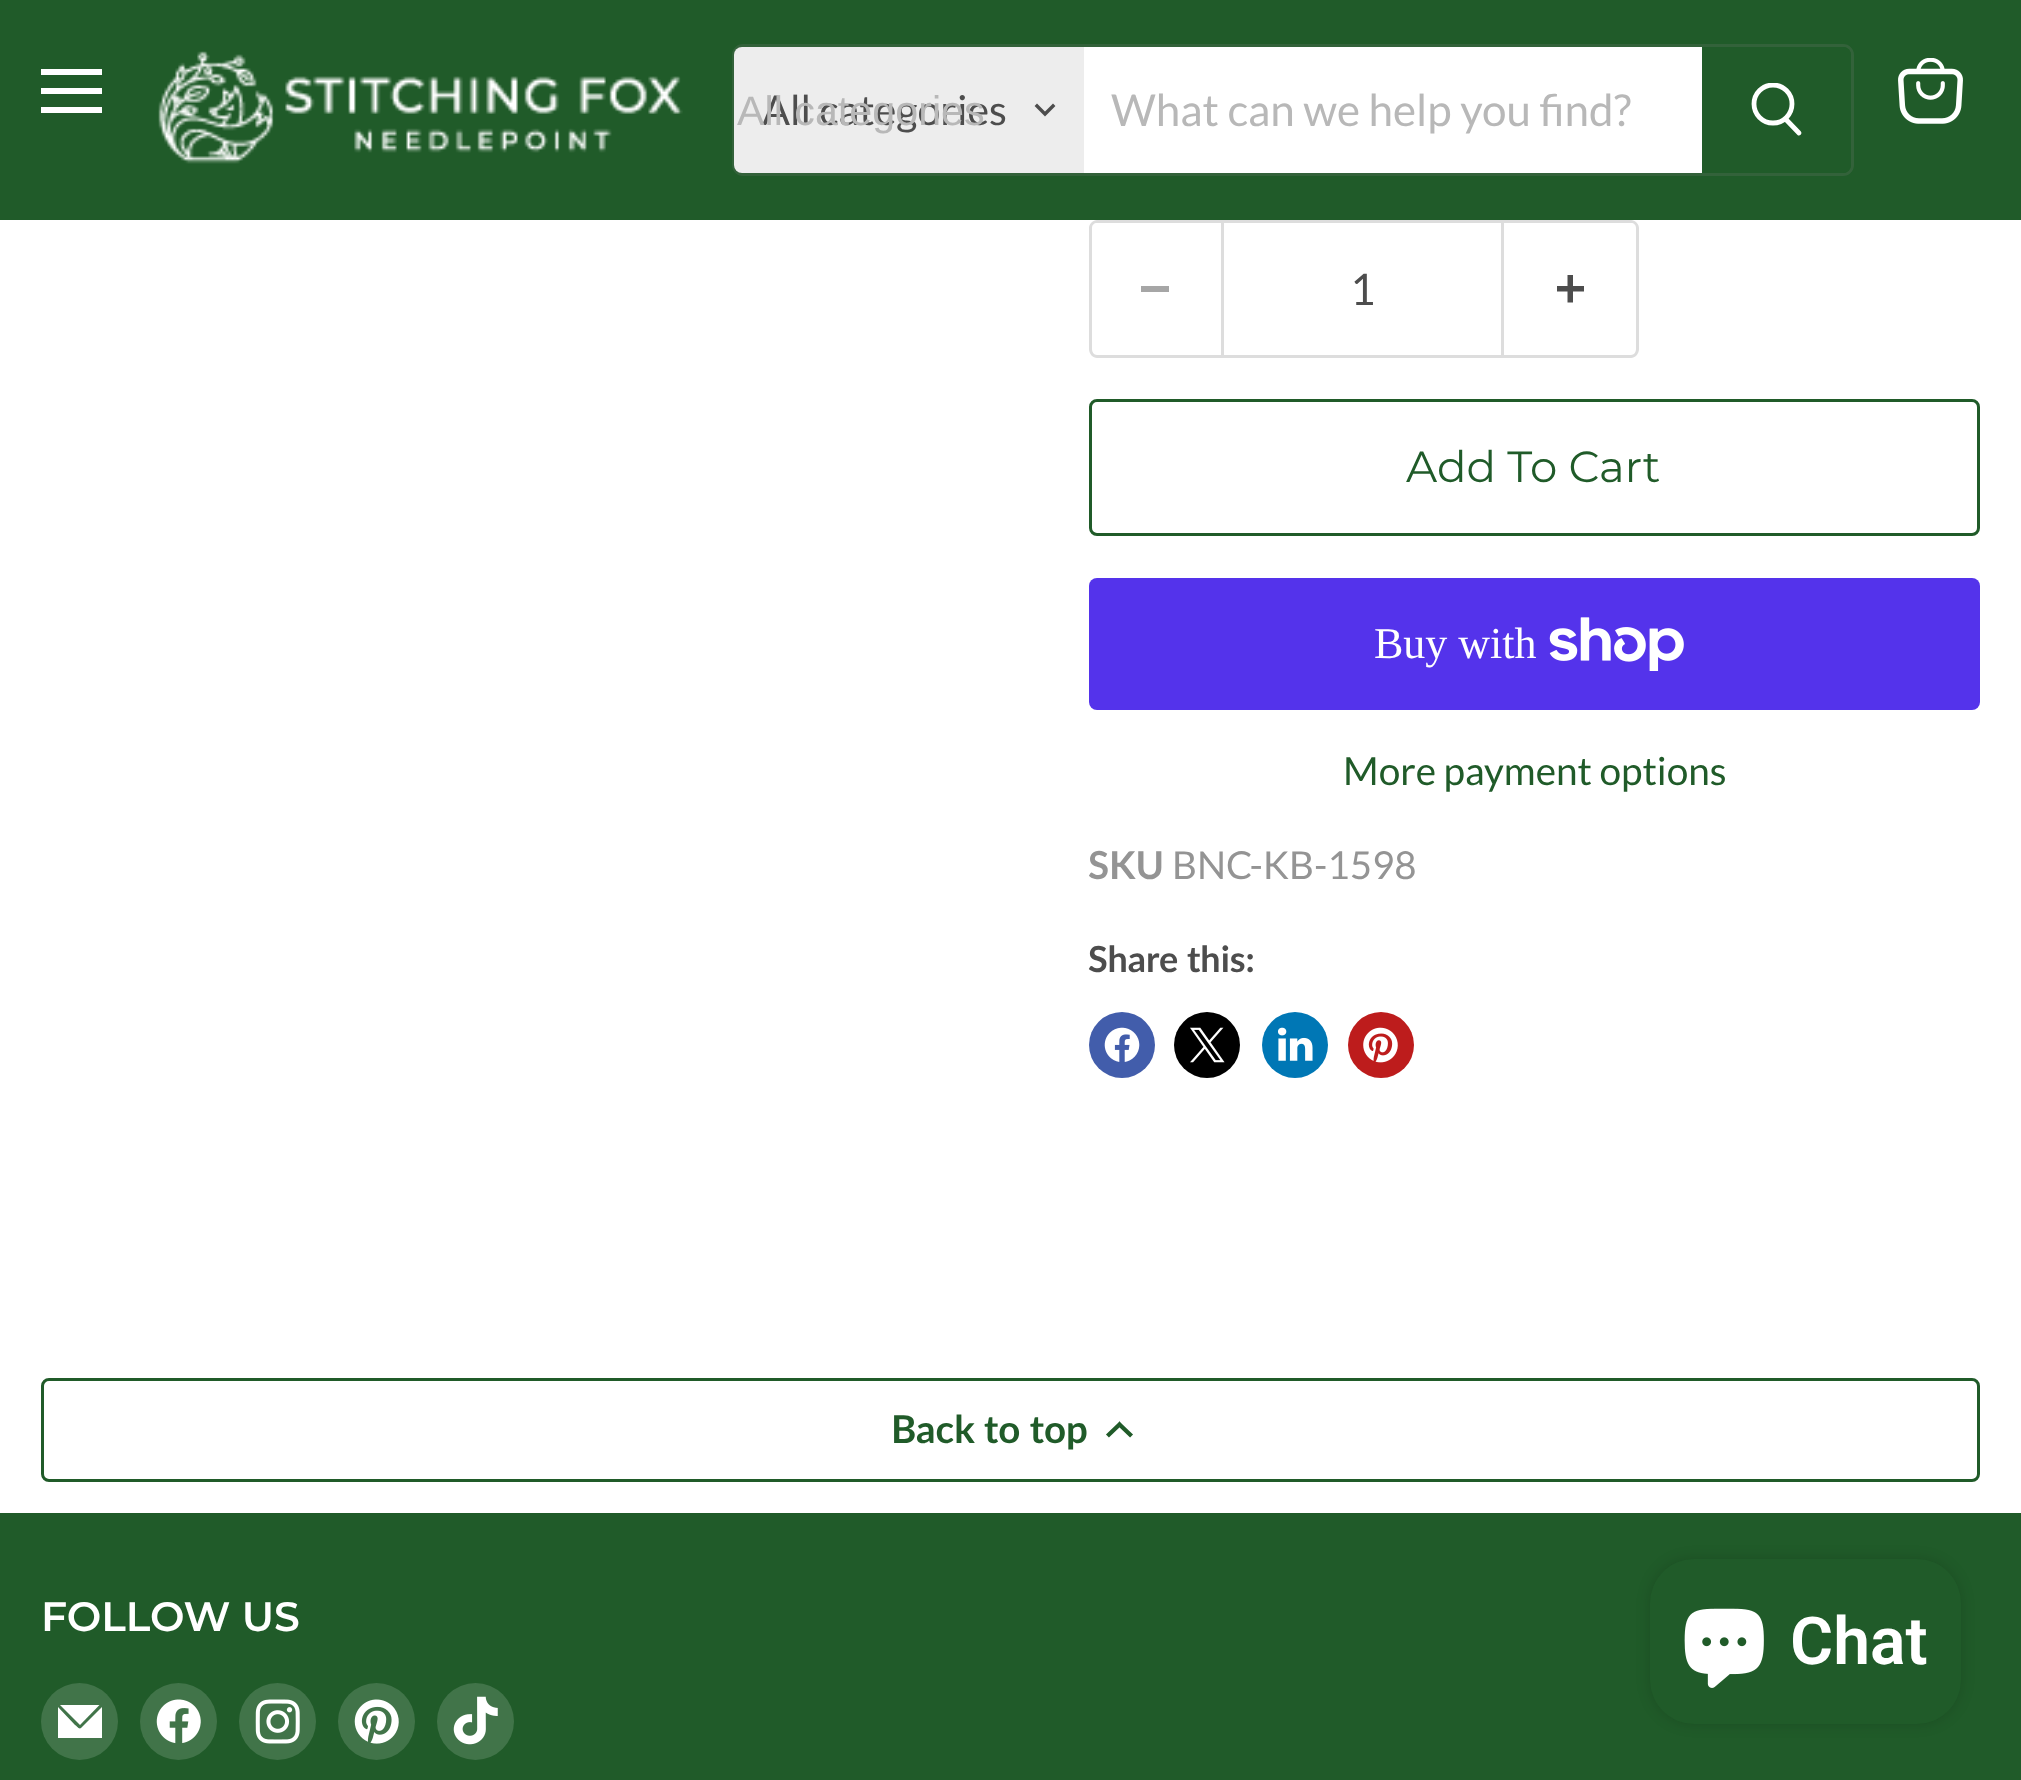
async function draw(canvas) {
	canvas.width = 2021;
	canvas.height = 1780;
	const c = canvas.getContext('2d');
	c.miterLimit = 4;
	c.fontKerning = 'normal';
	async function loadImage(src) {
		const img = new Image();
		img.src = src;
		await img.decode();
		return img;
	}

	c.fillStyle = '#fff';
	c.fillRect(0, 0, 2021, 1780);
	for (const [x, y, w, h, color] of [
		[0, 0, 2021, 220, '#205b29'],
		[41, 69, 61, 6, '#fff'],
		[41, 88, 61, 6, '#fff'],
		[41, 107, 61, 6, '#fff'],
	]) {
		c.fillStyle = color;
		c.fillRect(x, y, w, h);
	}
	c.drawImage(await loadImage('img1.png'), 158, 51, 525, 113);
	c.beginPath();
	c.roundRect(733.5, 45.5, 1119, 129, 9.5);
	c.strokeStyle = '#80808033';
	c.lineWidth = 3;
	c.stroke();
	c.fillStyle = '#ededed';
	c.beginPath();
	c.roundRect(734, 47, 350, 126, [8, 0, 0, 8]);
	c.fill();
	c.font = '41.25px Lato';
	c.fillStyle = '#4d4d4d';
	c.fillText('All categories', 762, 125);
	c.font = '41.25px Liberation Sans';
	c.fillStyle = '#b8b8b8';
	c.fillText('All categories', 737, 125);
	c.beginPath();
	c.moveTo(1045, 114);
	c.lineTo(1053, 106);
	c.moveTo(1045, 114);
	c.lineTo(1037, 106);
	c.strokeStyle = '#4d4d4d';
	c.lineWidth = 3.4;
	c.lineCap = 'square';
	c.stroke();
	c.fillStyle = '#fff';
	c.fillRect(1084, 47, 618, 126);
	c.font = '44px Lato';
	c.fillStyle = '#b8b8b8';
	c.fillText('What can we help you find?', 1111, 126);
	c.fillStyle = '#205b29';
	c.beginPath();
	c.roundRect(1702, 47, 149, 126, [0, 8, 8, 0]);
	c.fill();
	c.beginPath();
	c.moveTo(1799, 133);
	c.lineTo(1786, 119.5);
	c.strokeStyle = '#fff';
	c.lineWidth = 4.8;
	c.lineCap = 'round';
	c.stroke();
	c.save();
	c.beginPath();
	c.rect(1749, 83, 55, 57);
	c.clip();
	c.beginPath();
	c.arc(1773, 104, 19, 0, 2 * Math.PI);
	c.stroke();
	c.restore();
	c.drawImage(await loadImage('img2.png'), 1898, 58, 65, 66);
	c.fillStyle = '#ddd';
	c.beginPath();
	c.moveTo(1097, 220);
	c.lineTo(1221, 220);
	c.lineTo(1221, 358);
	c.lineTo(1097, 358);
	c.bezierCurveTo(1093, 358, 1089, 354, 1089, 349);
	c.lineTo(1089, 228);
	c.bezierCurveTo(1089, 224, 1093, 220, 1097, 220);
	c.closePath();
	c.moveTo(1097, 223);
	c.lineTo(1221, 223);
	c.lineTo(1221, 355);
	c.lineTo(1097, 355);
	c.bezierCurveTo(1094, 355, 1092, 352, 1092, 349);
	c.lineTo(1092, 228);
	c.bezierCurveTo(1092, 225, 1094, 223, 1097, 223);
	c.closePath();
	c.fill('evenodd');
	c.fillStyle = '#a6a6a6';
	c.fillRect(1141, 286, 28, 6);
	c.strokeStyle = '#ddd';
	c.lineWidth = 3;
	c.strokeRect(1222.5, 221.5, 280, 135);
	c.font = '43.5px Lato';
	c.fillStyle = '#4d4d4d';
	c.fillText('1', 1350, 305);
	c.fillStyle = '#ddd';
	c.beginPath();
	c.moveTo(1504, 220);
	c.lineTo(1631, 220);
	c.bezierCurveTo(1635, 220, 1639, 224, 1639, 228);
	c.lineTo(1639, 349);
	c.bezierCurveTo(1639, 354, 1635, 358, 1631, 358);
	c.lineTo(1504, 358);
	c.closePath();
	c.moveTo(1504, 223);
	c.lineTo(1631, 223);
	c.bezierCurveTo(1634, 223, 1636, 225, 1636, 228);
	c.lineTo(1636, 349);
	c.bezierCurveTo(1636, 352, 1634, 355, 1631, 355);
	c.lineTo(1504, 355);
	c.closePath();
	c.fill('evenodd');
	c.drawImage(await loadImage('img3.png'), 1557, 275, 27, 28);
	c.beginPath();
	c.roundRect(1090.5, 400.5, 888, 134, 6.5);
	c.strokeStyle = '#205b29';
	c.stroke();
	c.font = '43.5px Montserrat';
	c.fillStyle = '#205b29';
	c.fillText('Add To Cart', 1406, 482);
	c.fillStyle = '#5433eb';
	c.beginPath();
	c.roundRect(1089, 578, 891, 132, 8);
	c.fill();
	c.font = '44px Liberation Serif';
	c.fillStyle = '#fff';
	c.fillText('Buy with', 1374, 658);
	c.drawImage(await loadImage('img4.png'), 1549, 617, 135, 54);
	c.font = '38.75px Lato';
	c.fillStyle = '#205b29';
	c.fillText('More payment options', 1343, 785);
	c.font = 'bold 38.5px Lato';
	c.fillStyle = '#949494';
	c.fillText('SKU', 1088, 879);
	c.font = '38.5px Lato';
	c.fillText('BNC-KB-1598', 1172, 879);
	c.font = 'bold 36px Lato';
	c.fillStyle = '#4d4d4d';
	c.fillText('Share this:', 1088, 972);
	c.fillStyle = '#425dab';
	c.beginPath();
	c.arc(1122, 1045, 33, 0, 2 * Math.PI);
	c.fill();
	c.drawImage(await loadImage('img5.png'), 1104, 1027, 36, 35);
	c.fillStyle = '#000';
	c.beginPath();
	c.arc(1207, 1045, 33, 0, 2 * Math.PI);
	c.fill();
	c.drawImage(await loadImage('img6.png'), 1190, 1027, 35, 36);
	c.fillStyle = '#0077b5';
	c.beginPath();
	c.arc(1295, 1045, 33, 0, 2 * Math.PI);
	c.fill();
	c.drawImage(await loadImage('img7.png'), 1278, 1027, 35, 34);
	c.fillStyle = '#bd1c1c';
	c.beginPath();
	c.arc(1381, 1045, 33, 0, 2 * Math.PI);
	c.fill();
	c.drawImage(await loadImage('img8.png'), 1363, 1027, 35, 36);
	c.beginPath();
	c.roundRect(42.5, 1379.5, 1936, 101, 6.5);
	c.stroke();
	c.font = 'bold 38.5px Lato';
	c.fillStyle = '#205b29';
	c.fillText('Back to top', 891, 1443);
	c.beginPath();
	c.moveTo(1119.5, 1424.5);
	c.lineTo(1109, 1434.5);
	c.moveTo(1119.5, 1424.5);
	c.lineTo(1130, 1434.5);
	c.lineWidth = 4.3;
	c.lineCap = 'square';
	c.stroke();
	c.fillRect(0, 1513, 2021, 267);
	c.font = '600 41px Montserrat';
	c.fillStyle = '#fff';
	c.fillText('FOLLOW US', 41, 1631);
	c.fillStyle = '#417449';
	c.beginPath();
	c.arc(79.5, 1721.5, 38.5, 0, 2 * Math.PI);
	c.fill();
	c.fillStyle = '#fff';
	c.beginPath();
	c.moveTo(81, 1728);
	c.bezierCurveTo(79, 1730, 76, 1725, 75, 1725);
	c.lineTo(58, 1707);
	c.lineTo(58, 1738);
	c.lineTo(102, 1738);
	c.lineTo(102, 1707);
	c.closePath();
	c.fill();
	c.beginPath();
	c.moveTo(99.5, 1705);
	c.lineTo(60, 1705);
	c.lineTo(80, 1725);
	c.closePath();
	c.fill();
	c.fillStyle = '#417449';
	c.beginPath();
	c.arc(178.5, 1721.5, 38.5, 0, 2 * Math.PI);
	c.fill();
	c.drawImage(await loadImage('img9.png'), 156, 1699, 45, 45);
	c.beginPath();
	c.arc(277.5, 1721.5, 38.5, 0, 2 * Math.PI);
	c.fill();
	c.drawImage(await loadImage('img10.png'), 255, 1699, 45, 45);
	c.beginPath();
	c.arc(376.5, 1721.5, 38.5, 0, 2 * Math.PI);
	c.fill();
	c.drawImage(await loadImage('img11.png'), 354, 1699, 45, 45);
	c.beginPath();
	c.arc(475.5, 1721.5, 38.5, 0, 2 * Math.PI);
	c.fill();
	c.drawImage(await loadImage('img12.png'), 453, 1696, 45, 49);
	c.fillStyle = '#00000026';
	c.filter = 'blur(7px)';
	c.beginPath();
	c.roundRect(1650, 1559, 311, 165, 44);
	c.fill();
	c.filter = 'none';
	c.fillStyle = '#205b29';
	c.beginPath();
	c.roundRect(1650, 1559, 311, 165, 44);
	c.fill();
	c.drawImage(await loadImage('img13.png'), 1684, 1608, 80, 80);
	c.font = '600 66px Roboto';
	c.fillStyle = '#fff';
	c.fillText('Chat', 1790, 1664);
}

draw(document.querySelector('canvas'));
